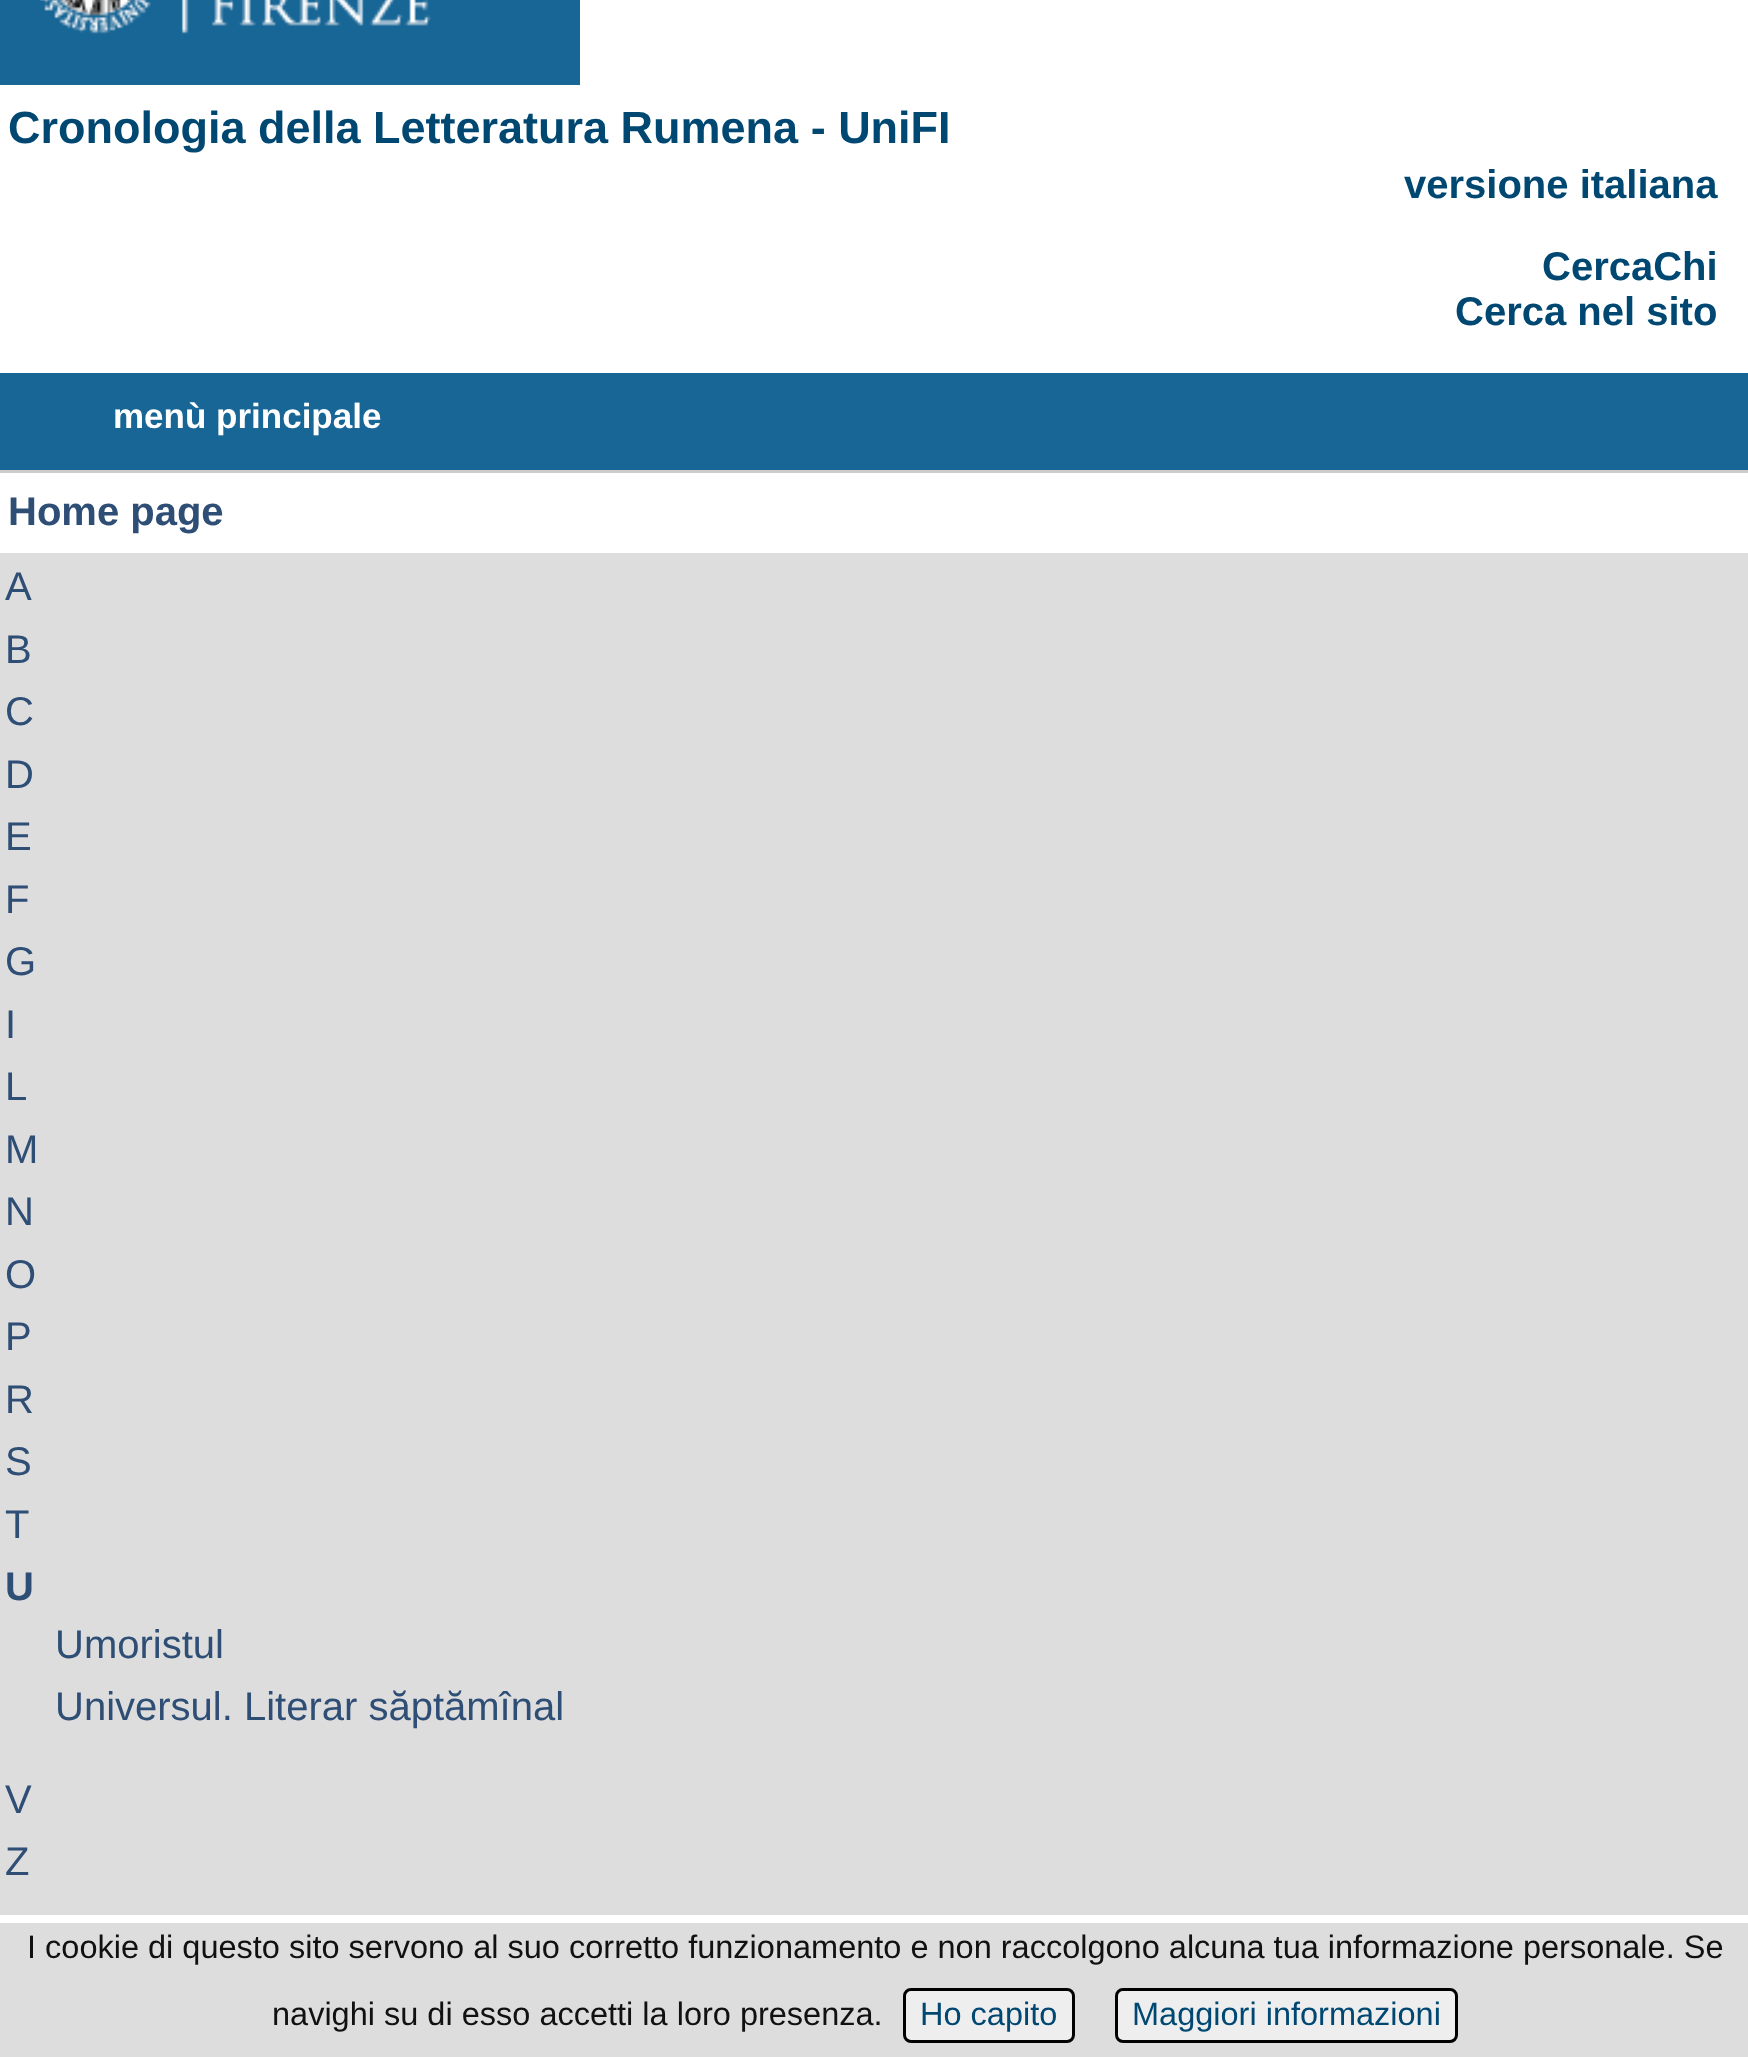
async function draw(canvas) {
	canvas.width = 1748;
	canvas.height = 2057;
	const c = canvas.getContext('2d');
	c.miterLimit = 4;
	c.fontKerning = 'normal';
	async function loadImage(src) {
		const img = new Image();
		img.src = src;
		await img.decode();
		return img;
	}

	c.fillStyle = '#fff';
	c.fillRect(0, 0, 1748, 2057);
	c.drawImage(await loadImage('img1.png'), 0, 0, 580, 85);
	c.font = 'bold 45px Liberation Sans';
	c.fillStyle = '#004872';
	c.fillText('Cronologia della Letteratura Rumena - UniFI', 8, 143);
	c.font = 'bold 40px Liberation Sans';
	for (const [text, x, y] of [
		['versione italiana', 1404, 198],
		['CercaChi', 1542, 280],
		['Cerca nel sito', 1455, 325],
	]) {
		c.fillText(text, x, y);
	}
	c.fillStyle = '#176696';
	c.fillRect(0, 373, 1748, 97);
	c.fillStyle = '#ccc';
	c.fillRect(0, 470, 1748, 3);
	c.font = 'bold 35px Liberation Sans';
	c.fillStyle = '#fff';
	c.fillText('menù principale', 113, 428);
	c.font = 'bold 40px Liberation Sans';
	c.fillStyle = '#2f4e75';
	c.fillText('Home page', 8, 525);
	c.fillStyle = '#ddd';
	c.fillRect(0, 553, 1748, 1362);
	c.font = '40px Liberation Sans';
	c.fillStyle = '#2f4e75';
	for (const [text, x, y] of [
		['A', 5, 600],
		['B', 5, 663],
		['C', 5, 725],
		['D', 5, 788],
		['E', 5, 850],
		['F', 5, 913],
		['G', 5, 975],
		['I', 5, 1038],
		['L', 5, 1100],
		['M', 5, 1163],
		['N', 5, 1225],
		['O', 5, 1288],
		['P', 5, 1350],
		['R', 5, 1413],
		['S', 5, 1475],
		['T', 5, 1538],
	]) {
		c.fillText(text, x, y);
	}
	c.font = 'bold 40px Liberation Sans';
	c.fillText('U', 5, 1600);
	c.font = '40px Liberation Sans';
	for (const [text, x, y] of [
		['Umoristul', 55, 1658],
		['Universul. Literar săptămînal', 55, 1720],
		['V', 5, 1813],
		['Z', 5, 1875],
	]) {
		c.fillText(text, x, y);
	}
	c.fillStyle = '#ddd';
	c.fillRect(0, 1923, 1748, 134);
	c.font = '32.5px Liberation Sans';
	c.fillStyle = '#111';
	c.fillText('I cookie di questo sito servono al suo corretto funzionamento e non raccolgono alcuna tua informazione personale. Se', 27, 1958);
	c.fillText('navighi su di esso accetti la loro presenza.', 272, 2025);
	c.fillStyle = '#eee';
	c.beginPath();
	c.roundRect(904.5, 1989.5, 169, 52, 6.5);
	c.fill();
	c.strokeStyle = '#000';
	c.lineWidth = 3;
	c.stroke();
	c.fillStyle = '#004872';
	c.fillText('Ho capito', 920, 2025);
	c.fillStyle = '#eee';
	c.beginPath();
	c.roundRect(1116.5, 1989.5, 340, 52, 6.5);
	c.fill();
	c.stroke();
	c.fillStyle = '#004872';
	c.fillText('Maggiori informazioni', 1132, 2025);
}

draw(document.querySelector('canvas'));
